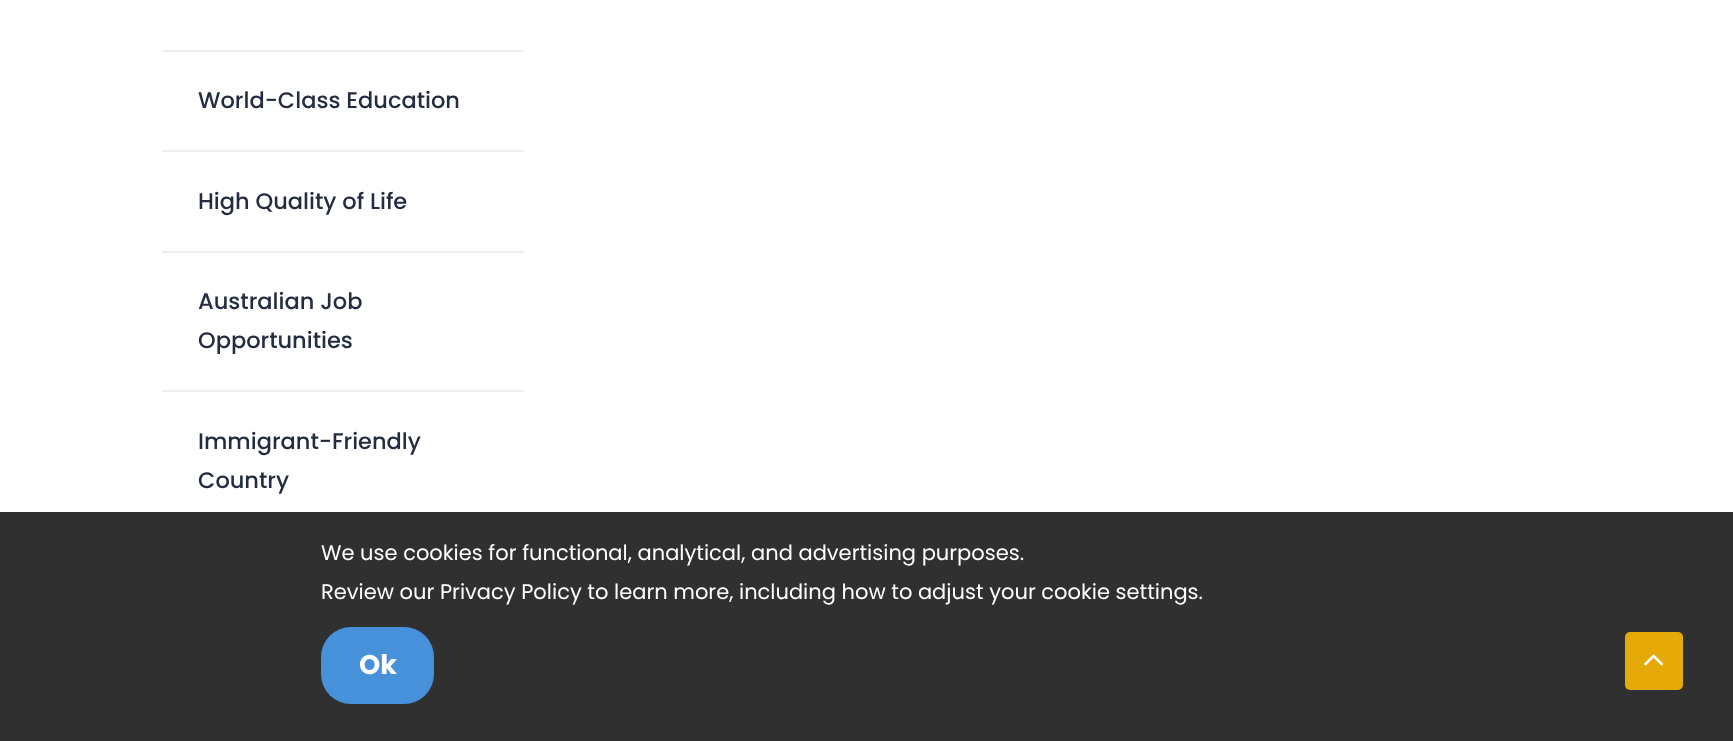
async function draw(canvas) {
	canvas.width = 1733;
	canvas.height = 741;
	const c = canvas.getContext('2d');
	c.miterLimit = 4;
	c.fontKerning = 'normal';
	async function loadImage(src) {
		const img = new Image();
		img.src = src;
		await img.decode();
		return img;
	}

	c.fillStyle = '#fff';
	c.fillRect(0, 0, 1733, 741);
	c.fillStyle = '#eee';
	c.fillRect(162, 50, 362, 2);
	c.font = '500 22.5px Poppins';
	c.fillStyle = '#242c42';
	c.fillText('World-Class Education', 198, 108);
	c.fillStyle = '#eee';
	c.fillRect(162, 150, 362, 2);
	c.fillStyle = '#242c42';
	c.fillText('High Quality of Life', 198, 209);
	c.fillStyle = '#eee';
	c.fillRect(162, 251, 362, 2);
	c.fillStyle = '#242c42';
	c.fillText('Australian Job', 198, 309);
	c.fillText('Opportunities', 198, 348);
	c.fillStyle = '#eee';
	c.fillRect(162, 390, 362, 2);
	c.fillStyle = '#242c42';
	c.fillText('Immigrant-Friendly', 198, 449);
	c.fillText('Country', 198, 488);
	c.fillStyle = '#303030';
	c.fillRect(0, 512, 1733, 229);
	c.font = '21px Poppins';
	c.fillStyle = '#fff';
	c.fillText('We use cookies for functional, analytical, and advertising purposes.', 321, 560);
	c.fillText('Review our Privacy Policy to learn more, including how to adjust your cookie settings.', 321, 599);
	c.fillStyle = '#4791db';
	c.beginPath();
	c.roundRect(321, 627, 113, 77, 30);
	c.fill();
	c.font = 'bold 27px Poppins';
	c.fillStyle = '#fff';
	c.fillText('Ok', 359, 674);
	c.fillStyle = '#e5a908';
	c.beginPath();
	c.roundRect(1625, 632, 58, 58, 5);
	c.fill();
	c.drawImage(await loadImage('img1.png'), 1644, 654, 20, 12);
}

draw(document.querySelector('canvas'));
